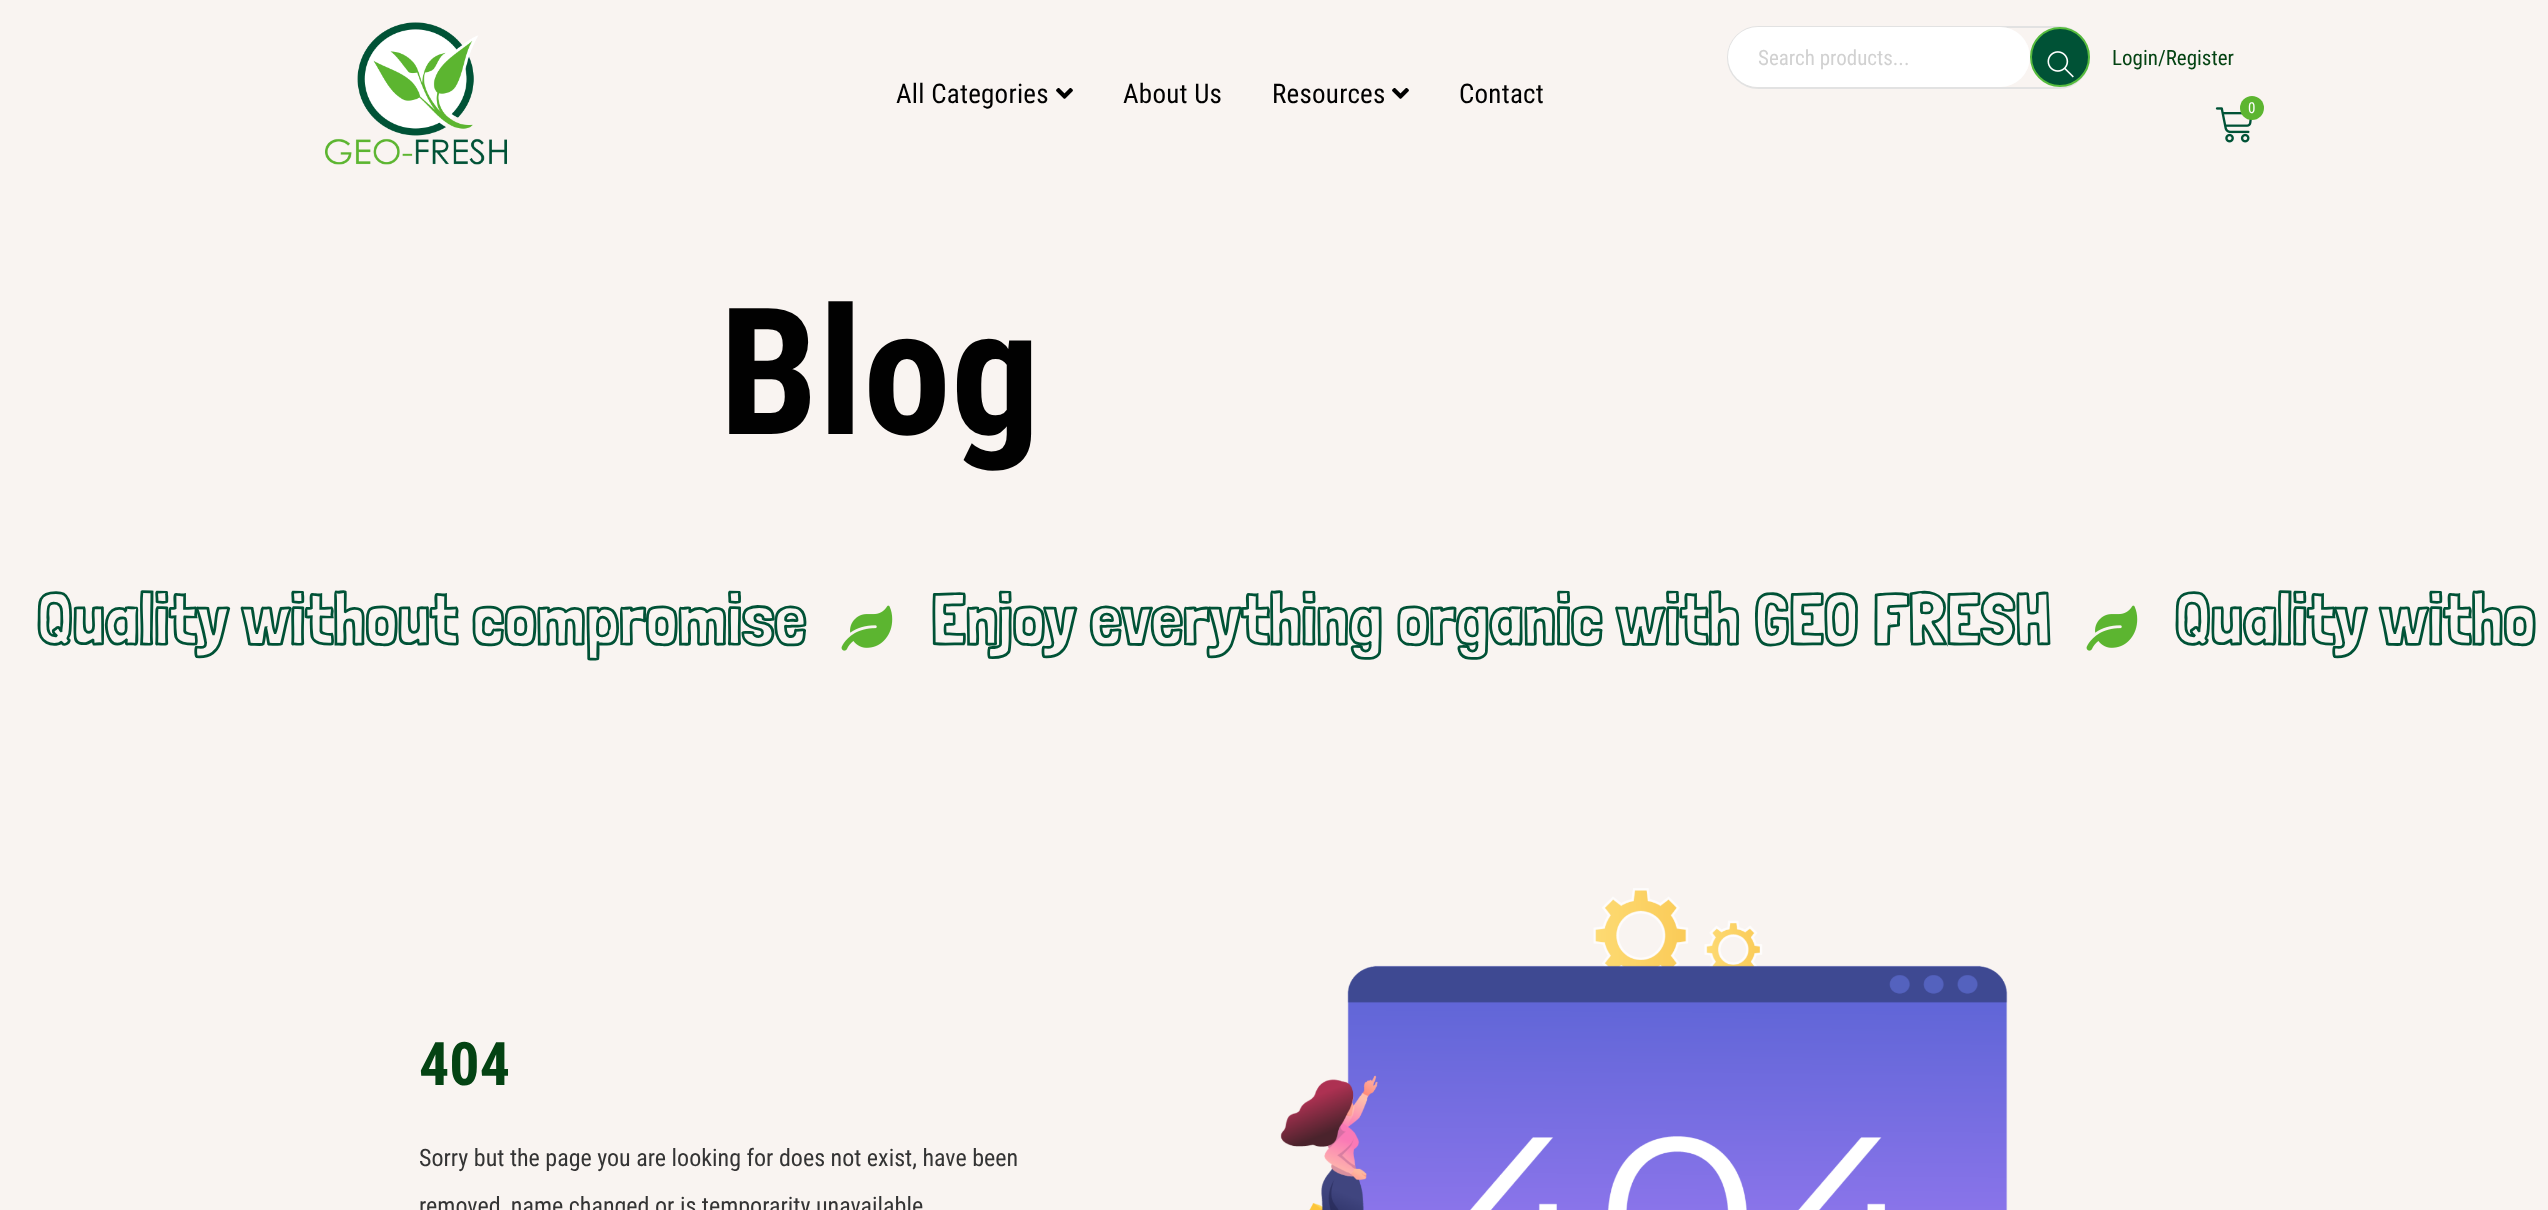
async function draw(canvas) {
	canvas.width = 2548;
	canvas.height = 1210;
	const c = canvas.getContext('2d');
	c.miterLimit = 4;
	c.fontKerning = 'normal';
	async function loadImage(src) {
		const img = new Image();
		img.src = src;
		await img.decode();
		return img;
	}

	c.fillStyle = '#f9f4f1';
	c.fillRect(0, 0, 2548, 1210);
	c.drawImage(await loadImage('img1.png'), 325, 22, 182, 143);
	c.letterSpacing = '0.25px';
	c.font = '27px Roboto Condensed';
	c.fillStyle = '#010101';
	c.fillText('All Categories', 896, 103);
	c.drawImage(await loadImage('img2.png'), 1056, 88, 17, 11);
	c.fillText('About Us', 1123, 103);
	c.fillText('Resources', 1272, 103);
	c.drawImage(await loadImage('img2.png'), 1392, 88, 17, 11);
	c.fillText('Contact', 1459, 103);
	c.beginPath();
	c.roundRect(1728, 27, 361, 61, 30.5);
	c.strokeStyle = '#e2e2e2';
	c.lineWidth = 2;
	c.stroke();
	c.fillStyle = '#fff';
	c.beginPath();
	c.roundRect(1728, 27, 302, 60, 30);
	c.fill();
	c.letterSpacing = '0px';
	c.font = '21px Roboto Condensed';
	c.fillStyle = '#d1d1d1';
	c.fillText('Search products...', 1758, 65);
	c.fillStyle = '#005236';
	c.beginPath();
	c.arc(2060, 57, 29, 0, 2 * Math.PI);
	c.fill();
	c.strokeStyle = '#56bb3e';
	c.stroke();
	c.drawImage(await loadImage('img3.png'), 2047, 51, 27, 27);
	c.fillStyle = '#044313';
	c.fillText('Login/Register', 2112, 65);
	c.drawImage(await loadImage('img4.png'), 2215, 107, 37, 36);
	c.fillStyle = '#5cb530';
	c.beginPath();
	c.arc(2252, 108, 12, 0, 2 * Math.PI);
	c.fill();
	c.font = '15px Roboto Condensed';
	c.fillStyle = '#fff';
	c.fillText('0', 2248, 113);
	c.font = 'bold 177px Roboto Condensed';
	c.fillStyle = '#010101';
	c.fillText('Blog', 719, 434);
	c.font = 'bold 72px Londrina Outline';
	c.fillStyle = '#005236';
	c.fillText('Quality without compromise', 36, 645);
	c.drawImage(await loadImage('img5.png'), 841, 605, 52, 46);
	c.fillText('Enjoy everything organic with GEO FRESH', 930, 645);
	c.drawImage(await loadImage('img5.png'), 2086, 605, 52, 46);
	c.fillText('Quality witho', 2174, 645);
	c.font = 'bold 60px Roboto Condensed';
	c.fillStyle = '#044313';
	c.fillText('404', 419, 1085);
	c.font = '24px Roboto Condensed';
	c.fillStyle = '#343434';
	c.fillText('Sorry but the page you are looking for does not exist, have been', 419, 1166);
	c.fillText('removed, name changed or is temporarity unavailable', 419, 1214);
	c.drawImage(await loadImage('img6.png'), 1280, 888, 728, 322);
}

draw(document.querySelector('canvas'));
